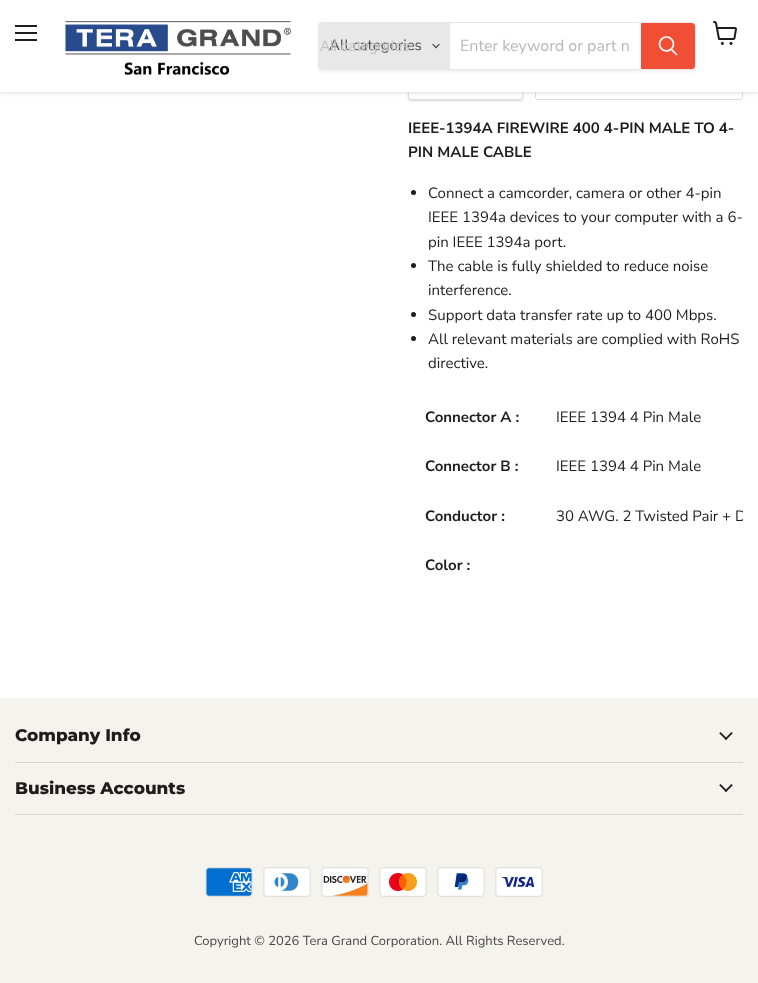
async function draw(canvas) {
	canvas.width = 758;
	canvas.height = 983;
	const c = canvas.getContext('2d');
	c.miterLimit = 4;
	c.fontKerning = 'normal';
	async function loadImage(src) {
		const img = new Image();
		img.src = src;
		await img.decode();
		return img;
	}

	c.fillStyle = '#fff';
	c.fillRect(0, 0, 758, 983);
	c.fillStyle = '#00000026';
	c.filter = 'blur(1px)';
	c.beginPath();
	c.roundRect(408, 52, 115, 49, 3);
	c.fill();
	c.filter = 'none';
	c.fillStyle = '#fff';
	c.beginPath();
	c.roundRect(408.5, 51.5, 114, 48, 2.5);
	c.fill();
	c.strokeStyle = '#ddd';
	c.stroke();
	c.beginPath();
	c.roundRect(535.5, 51.5, 207, 48, 2.5);
	c.stroke();
	c.fillStyle = '#80808040';
	c.filter = 'blur(2px)';
	c.beginPath();
	c.rect(0, 1, 758, 92);
	c.fill();
	c.filter = 'none';
	for (const [x, y, w, h, color] of [
		[0, 0, 758, 92, '#fff'],
		[15, 25, 22, 2, '#1d1d1d'],
		[15, 32, 22, 2, '#1d1d1d'],
		[15, 39, 22, 2, '#1d1d1d'],
	]) {
		c.fillStyle = color;
		c.fillRect(x, y, w, h);
	}
	c.drawImage(await loadImage('img1.png'), 713, 21, 24, 24);
	c.drawImage(await loadImage('img2.png'), 65, 21, 227, 55);
	c.save();
	c.beginPath();
	c.moveTo(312, 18);
	c.lineTo(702, 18);
	c.lineTo(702, 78);
	c.lineTo(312, 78);
	c.closePath();
	c.moveTo(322, 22);
	c.lineTo(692, 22);
	c.bezierCurveTo(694, 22, 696, 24, 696, 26);
	c.lineTo(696, 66);
	c.bezierCurveTo(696, 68, 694, 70, 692, 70);
	c.lineTo(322, 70);
	c.bezierCurveTo(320, 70, 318, 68, 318, 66);
	c.lineTo(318, 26);
	c.bezierCurveTo(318, 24, 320, 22, 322, 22);
	c.closePath();
	c.clip('evenodd');
	c.fillStyle = '#8080801c';
	c.filter = 'blur(1.5px)';
	c.beginPath();
	c.roundRect(318, 24, 378, 48, 4);
	c.fill();
	c.filter = 'none';
	c.restore();
	c.beginPath();
	c.roundRect(318.5, 22.5, 377, 47, 3.5);
	c.strokeStyle = '#80808033';
	c.stroke();
	c.fillStyle = '#e8e8e8';
	c.beginPath();
	c.roundRect(319, 23, 131, 46, [3, 0, 0, 3]);
	c.fill();
	c.font = '15px Nunito Sans';
	c.fillStyle = '#4d4d4d';
	c.fillText('All categories', 329, 50);
	c.font = '15px Liberation Sans';
	c.fillStyle = '#c2c2c2';
	c.fillText('All categories', 320, 51);
	c.drawImage(await loadImage('img3.png'), 432, 43, 8, 6);
	c.font = '16px Nunito Sans';
	c.fillStyle = '#b8b8b8';
	c.fillText('Enter keyword or part n', 460, 51);
	c.fillStyle = '#f04f36';
	c.beginPath();
	c.roundRect(641.5, 23.5, 53, 45, [0, 2.5, 2.5, 0]);
	c.fill();
	c.strokeStyle = '#f04f36';
	c.stroke();
	c.beginPath();
	c.moveTo(676.5, 54.5);
	c.lineTo(671.5, 49.5);
	c.strokeStyle = '#fff';
	c.lineWidth = 1.7;
	c.lineCap = 'round';
	c.stroke();
	c.beginPath();
	c.arc(666.5, 44, 7, 0, 2 * Math.PI);
	c.stroke();
	c.font = 'bold 15px Nunito Sans';
	c.fillStyle = '#1d1d1d';
	c.fillText('IEEE-1394A FIREWIRE 400 4-PIN MALE TO 4-', 408, 133);
	c.fillText('PIN MALE CABLE', 408, 157);
	c.beginPath();
	c.arc(413.5, 192.5, 2.5, 0, 2 * Math.PI);
	c.fill();
	c.font = '15px Nunito Sans';
	for (const [text, x, y] of [
		['Connect a camcorder, camera or other 4-pin', 428, 198],
		['IEEE 1394a devices to your computer with a 6-', 428, 222],
		['pin IEEE 1394a port.', 428, 247],
	]) {
		c.fillText(text, x, y);
	}
	c.beginPath();
	c.arc(413.5, 265.5, 2.5, 0, 2 * Math.PI);
	c.fill();
	c.fillText('The cable is fully shielded to reduce noise', 428, 271);
	c.fillText('interference.', 428, 295);
	c.beginPath();
	c.arc(413.5, 314.5, 2.5, 0, 2 * Math.PI);
	c.fill();
	c.fillText('Support data transfer rate up to 400 Mbps.', 428, 320);
	c.beginPath();
	c.arc(413.5, 338.5, 2.5, 0, 2 * Math.PI);
	c.fill();
	c.fillText('All relevant materials are complied with RoHS', 428, 344);
	c.fillText('directive.', 428, 368);
	c.font = 'bold 15px Nunito Sans';
	c.fillText('Connector A :', 425, 422);
	c.font = '15px Nunito Sans';
	c.fillText('IEEE 1394 4 Pin Male', 556, 422);
	c.font = 'bold 15px Nunito Sans';
	c.fillText('Connector B :', 425, 471);
	c.font = '15px Nunito Sans';
	c.fillText('IEEE 1394 4 Pin Male', 556, 471);
	c.font = 'bold 15px Nunito Sans';
	c.fillText('Conductor :', 425, 521);
	c.save();
	c.beginPath();
	c.rect(408, 392, 335, 198);
	c.clip();
	c.font = '15px Nunito Sans';
	c.fillText('30 AWG. 2 Twisted Pair + D', 556, 521);
	c.restore();
	c.fillText('Color :', 425, 570);
	c.fillStyle = '#f5f3ed';
	c.fillRect(0, 698, 758, 285);
	c.fillStyle = '#d5d3ce';
	c.fillRect(15, 762, 728, 1);
	c.font = '800 16.9px Montserrat';
	c.fillStyle = '#1d1d1d';
	c.fillText('Company Info', 15, 741);
	c.drawImage(await loadImage('img4.png'), 719, 732, 14, 8);
	c.fillStyle = '#d5d3ce';
	c.fillRect(15, 814, 728, 1);
	c.fillStyle = '#1d1d1d';
	c.fillText('Business Accounts', 15, 794);
	c.drawImage(await loadImage('img4.png'), 719, 784, 14, 8);
	c.drawImage(await loadImage('img5.png'), 205, 867, 48, 30);
	c.drawImage(await loadImage('img6.png'), 263, 867, 48, 30);
	c.drawImage(await loadImage('img7.png'), 321, 867, 48, 30);
	c.drawImage(await loadImage('img8.png'), 379, 867, 48, 30);
	c.drawImage(await loadImage('img9.png'), 437, 867, 48, 30);
	c.drawImage(await loadImage('img10.png'), 495, 867, 48, 30);
	c.font = '13px Nunito Sans';
	c.fillStyle = '#484847';
	c.fillText('Copyright © 2026 Tera Grand Corporation. All Rights Reserved.', 194, 945);
}

draw(document.querySelector('canvas'));
